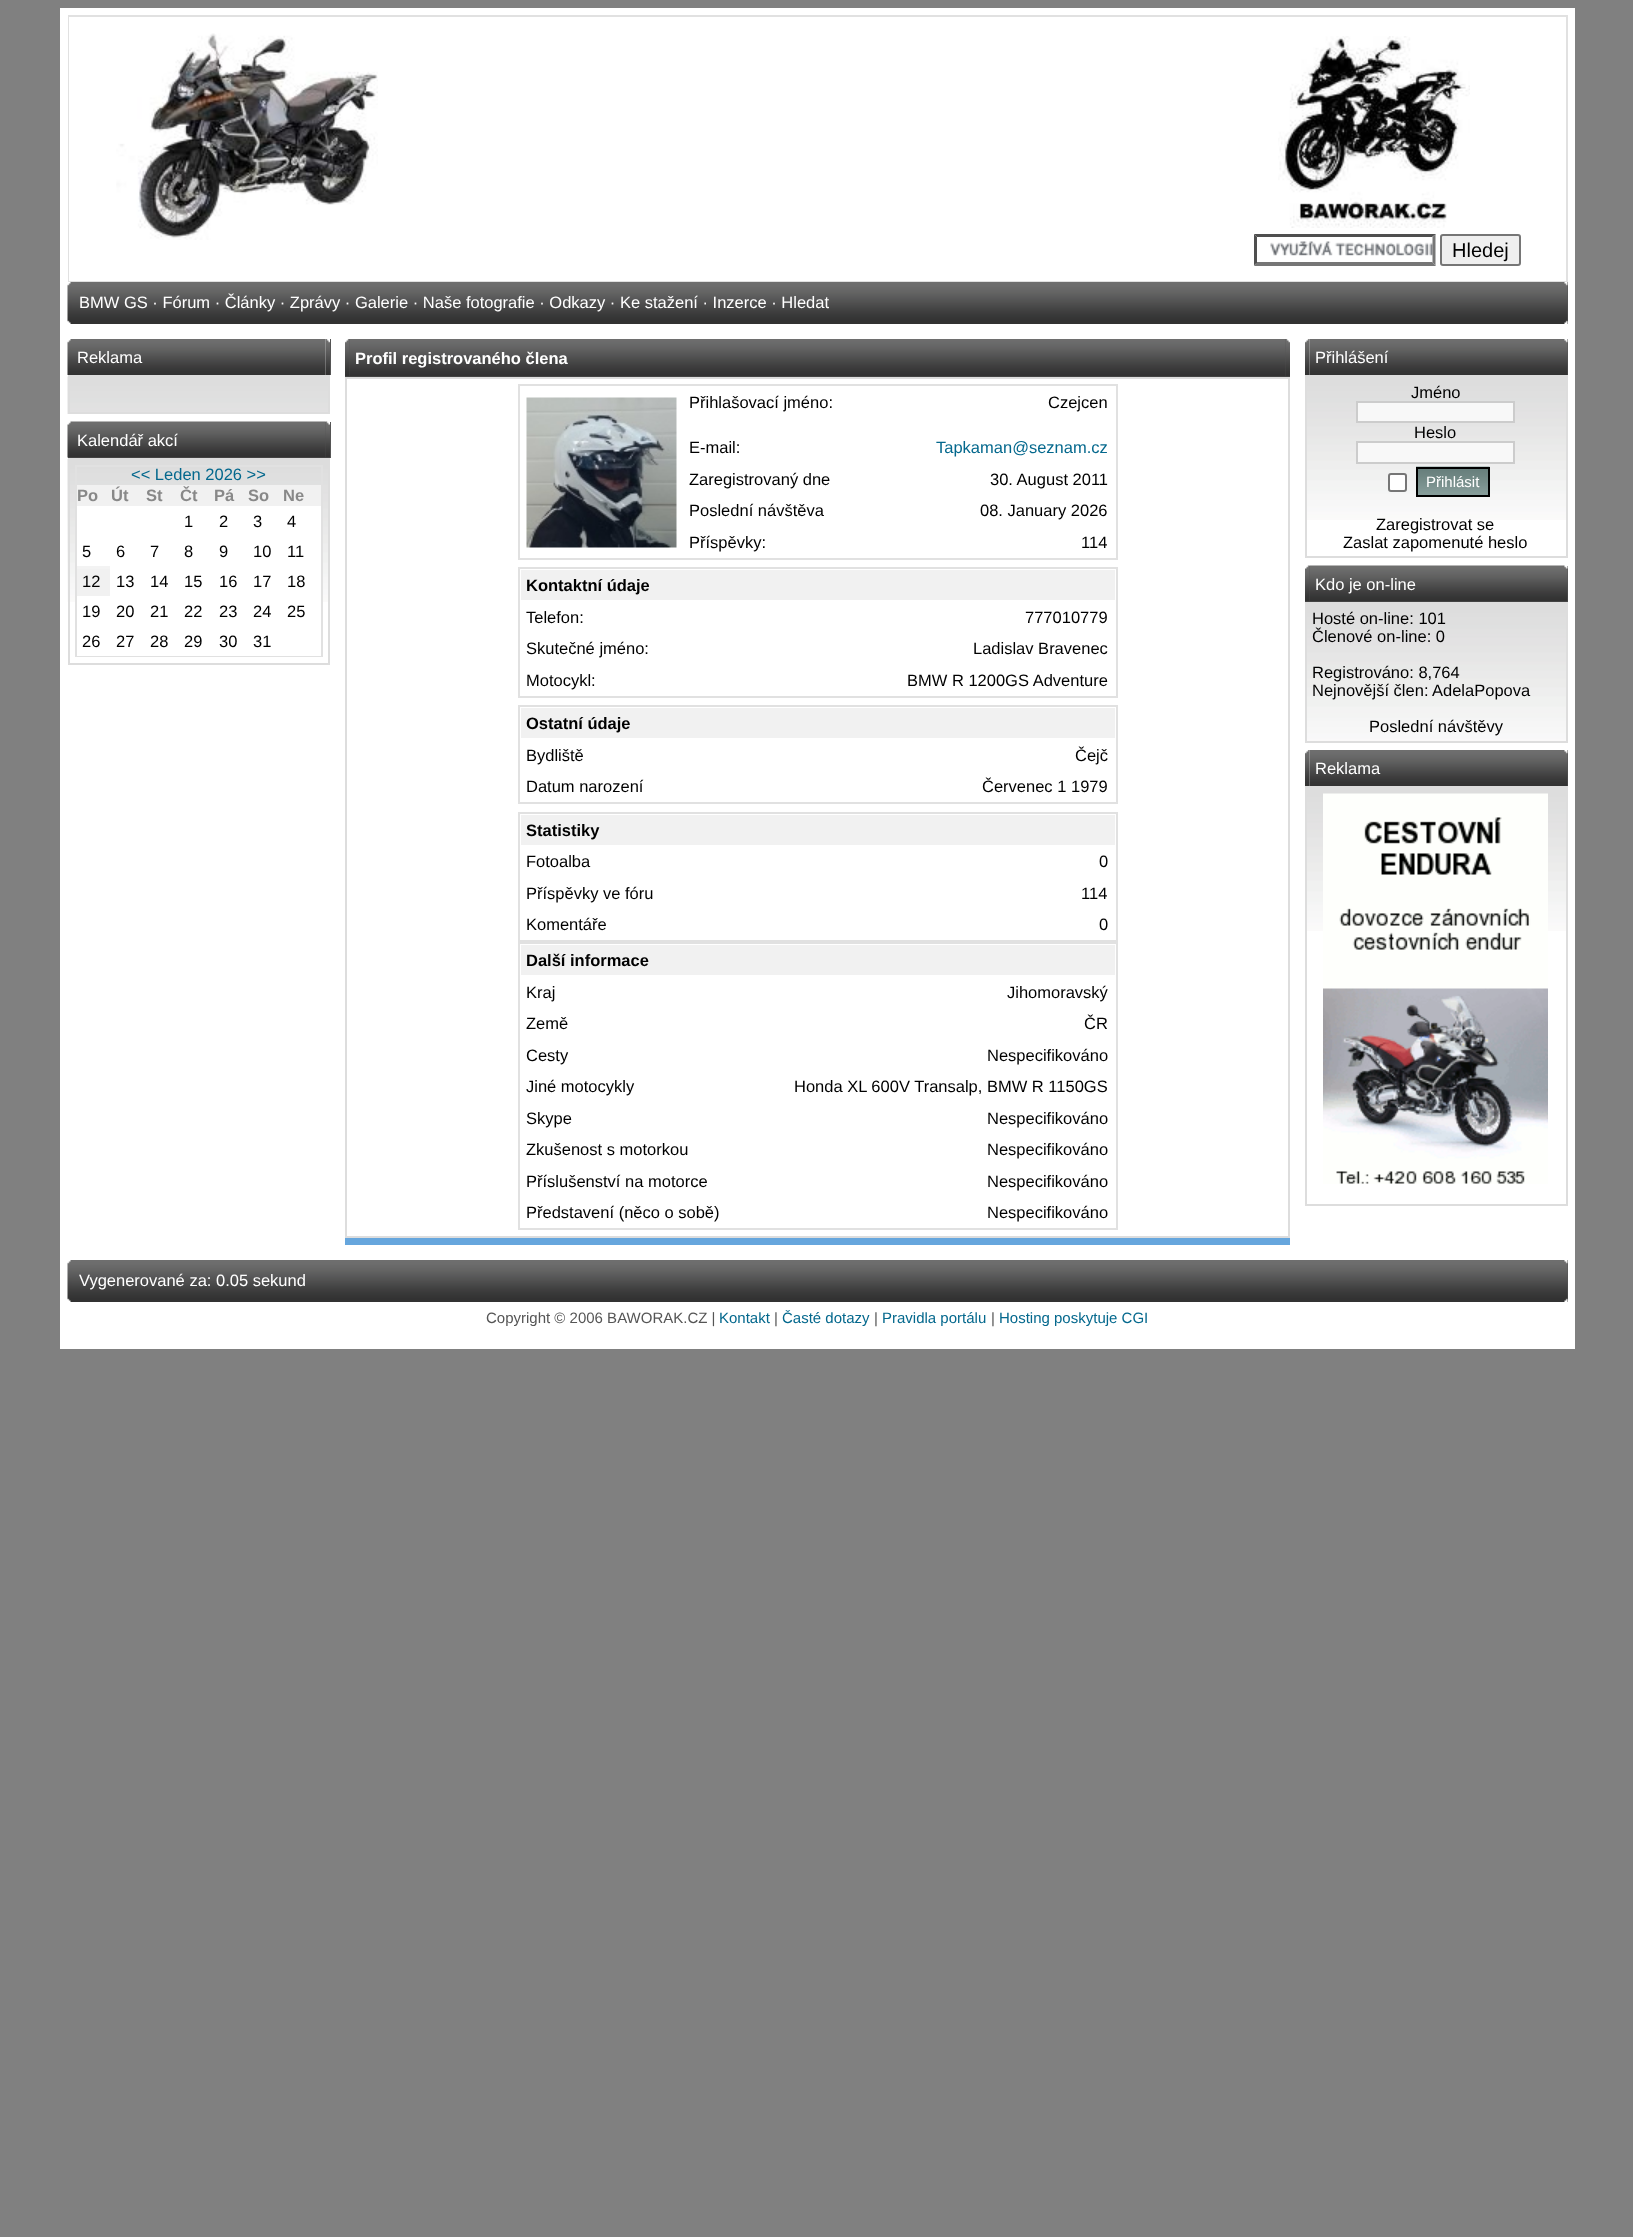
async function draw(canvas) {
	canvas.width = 1633;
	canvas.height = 2237;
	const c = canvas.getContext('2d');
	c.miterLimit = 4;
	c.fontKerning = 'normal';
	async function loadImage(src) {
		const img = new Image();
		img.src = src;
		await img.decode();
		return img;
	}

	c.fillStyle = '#808080';
	c.fillRect(0, 0, 1633, 2237);
	c.fillStyle = '#fff';
	c.fillRect(60, 8, 1515, 1341);
	c.strokeStyle = '#e1e1e1';
	c.lineWidth = 2;
	c.strokeRect(69, 16, 1498, 265);
	c.fillRect(69, 17, 1497, 264);
	c.drawImage(await loadImage('img1.png'), 116, 33, 262, 207);
	c.drawImage(await loadImage('img2.png'), 1278, 36, 192, 192);
	c.drawImage(await loadImage('img3.png'), 1270, 241, 163, 15);
	c.fillStyle = '#4f4f4f';
	c.beginPath();
	c.moveTo(1254, 234);
	c.lineTo(1436, 234);
	c.lineTo(1432, 237);
	c.lineTo(1257, 237);
	c.closePath();
	c.fill();
	c.fillStyle = '#767676';
	c.beginPath();
	c.moveTo(1435.5, 234);
	c.lineTo(1435.5, 265.5);
	c.lineTo(1432.5, 262.5);
	c.lineTo(1432.5, 237);
	c.closePath();
	c.fill();
	c.beginPath();
	c.moveTo(1436, 266);
	c.lineTo(1254, 266);
	c.lineTo(1257, 262);
	c.lineTo(1432, 262);
	c.closePath();
	c.fill();
	c.fillStyle = '#4f4f4f';
	c.beginPath();
	c.moveTo(1254, 265.5);
	c.lineTo(1254, 234);
	c.lineTo(1257, 237);
	c.lineTo(1257, 262.5);
	c.closePath();
	c.fill();
	c.fillStyle = '#efefef';
	c.beginPath();
	c.roundRect(1441, 235, 79, 30, 2);
	c.fill();
	c.strokeStyle = '#767676';
	c.stroke();
	c.font = '20px Liberation Sans';
	c.fillStyle = '#000';
	c.fillText('Hledej', 1452, 257);
	c.drawImage(await loadImage('img4.png'), 67, 282, 5, 42);
	c.drawImage(await loadImage('img5.png'), 72, 282, 1491, 42);
	c.font = '16.5px Liberation Sans';
	c.fillStyle = '#fff';
	c.fillText('BMW GS · Fórum · Články · Zprávy · Galerie · Naše fotografie · Odkazy · Ke stažení · Inzerce · Hledat', 79, 308);
	c.fillStyle = '#555';
	c.fillRect(1567, 282, 1, 42);
	c.drawImage(await loadImage('img6.png'), 1563, 282, 5, 42);
	c.drawImage(await loadImage('img7.png'), 67, 339, 5, 36);
	c.drawImage(await loadImage('img8.png'), 72, 339, 254, 36);
	c.fillStyle = '#fff';
	c.fillText('Reklama', 77, 363);
	c.fillStyle = '#555';
	c.fillRect(330, 339, 1, 36);
	c.drawImage(await loadImage('img9.png'), 325, 339, 5, 36);
	c.drawImage(await loadImage('img10.png'), 67, 376, 261, 38);
	c.strokeStyle = '#ddd';
	c.strokeRect(69, 376, 260, 37);
	c.fillRect(68, 457, 4, 1);
	c.drawImage(await loadImage('img11.png'), 67, 421, 5, 37);
	c.fillRect(72, 422, 259, 36);
	c.drawImage(await loadImage('img12.png'), 72, 421, 254, 37);
	c.fillStyle = '#fff';
	c.fillText('Kalendář akcí', 77, 446);
	c.drawImage(await loadImage('img13.png'), 325, 421, 5, 37);
	c.drawImage(await loadImage('img14.png'), 67, 459, 261, 143);
	c.strokeRect(69, 459, 260, 205);
	c.strokeStyle = '#e1e1e1';
	c.strokeRect(76, 466, 246, 190);
	c.fillStyle = '#04688d';
	c.fillText('<< Leden 2026 >>', 131, 480);
	c.fillStyle = '#f1f1f1';
	c.fillRect(77, 485, 244, 21);
	c.font = 'bold 16.5px Liberation Sans';
	c.fillStyle = '#888';
	for (const [text, x, y] of [
		['Po', 77, 501],
		['Út', 111, 501],
		['St', 146, 501],
		['Čt', 180, 501],
		['Pá', 214, 501],
		['So', 248, 501],
		['Ne', 283, 501],
	]) {
		c.fillText(text, x, y);
	}
	c.fillStyle = '#fff';
	c.fillRect(77, 506, 244, 30);
	c.font = '16.5px Liberation Sans';
	c.fillStyle = '#000';
	for (const [text, x, y] of [
		['1', 184, 527],
		['2', 219, 527],
		['3', 253, 527],
		['4', 287, 527],
	]) {
		c.fillText(text, x, y);
	}
	c.fillStyle = '#fff';
	c.fillRect(77, 536, 244, 30);
	c.fillStyle = '#000';
	for (const [text, x, y] of [
		['5', 82, 557],
		['6', 116, 557],
		['7', 150, 557],
		['8', 184, 557],
		['9', 219, 557],
		['10', 253, 557],
		['11', 287, 557],
	]) {
		c.fillText(text, x, y);
	}
	c.fillStyle = '#f1f1f1';
	c.fillRect(77, 569, 33, 27);
	c.fillStyle = '#000';
	c.fillText('12', 82, 587);
	c.fillStyle = '#fff';
	c.fillRect(110, 566, 211, 30);
	c.fillStyle = '#000';
	for (const [text, x, y] of [
		['13', 116, 587],
		['14', 150, 587],
		['15', 184, 587],
		['16', 219, 587],
		['17', 253, 587],
		['18', 287, 587],
	]) {
		c.fillText(text, x, y);
	}
	c.fillStyle = '#fff';
	c.fillRect(77, 596, 244, 6);
	c.fillStyle = '#000';
	for (const [text, x, y] of [
		['19', 82, 617],
		['20', 116, 617],
		['21', 150, 617],
		['22', 184, 617],
		['23', 219, 617],
		['24', 253, 617],
		['25', 287, 617],
	]) {
		c.fillText(text, x, y);
	}
	c.fillStyle = '#fff';
	c.fillRect(77, 655, 244, 1);
	c.fillStyle = '#000';
	for (const [text, x, y] of [
		['26', 82, 647],
		['27', 116, 647],
		['28', 150, 647],
		['29', 184, 647],
		['30', 219, 647],
		['31', 253, 647],
	]) {
		c.fillText(text, x, y);
	}
	c.fillStyle = '#555';
	c.fillRect(345, 339, 941, 38);
	c.drawImage(await loadImage('img15.png'), 345, 339, 5, 38);
	c.fillRect(1286, 376, 4, 1);
	c.drawImage(await loadImage('img17.png'), 349, 339, 937, 38);
	c.drawImage(await loadImage('img16.png'), 1285, 339, 5, 38);
	c.font = 'bold 16.5px Liberation Sans';
	c.fillStyle = '#fff';
	c.fillText('Profil registrovaného člena', 355, 364);
	c.strokeStyle = '#ddd';
	c.strokeRect(346, 378, 943, 859);
	c.strokeStyle = '#e1e1e1';
	c.strokeRect(519, 385, 598, 174);
	c.drawImage(await loadImage('img18.png'), 526, 397, 151, 151);
	c.font = '16.5px Liberation Sans';
	c.fillStyle = '#000';
	for (const [text, x, y] of [
		['Přihlašovací jméno:', 689, 408],
		['Czejcen', 1048, 408],
		['E-mail:', 689, 453],
	]) {
		c.fillText(text, x, y);
	}
	c.fillStyle = '#04688d';
	c.fillText('Tapkaman@seznam.cz', 936, 453);
	c.fillStyle = '#000';
	for (const [text, x, y] of [
		['Zaregistrovaný dne', 689, 485],
		['30. August 2011', 990, 485],
		['Poslední návštěva', 689, 516],
		['08. January 2026', 980, 516],
		['Příspěvky:', 689, 548],
		['114', 1081, 548],
	]) {
		c.fillText(text, x, y);
	}
	c.strokeRect(519, 568, 598, 129);
	c.fillStyle = '#f1f1f1';
	c.fillRect(521, 570, 594, 30);
	c.font = 'bold 16.5px Liberation Sans';
	c.fillStyle = '#000';
	c.fillText('Kontaktní údaje', 526, 591);
	c.font = '16.5px Liberation Sans';
	for (const [text, x, y] of [
		['Telefon:', 526, 623],
		['777010779', 1025, 623],
		['Skutečné jméno:', 526, 654],
		['Ladislav Bravenec', 973, 654],
		['Motocykl:', 526, 686],
		['BMW R 1200GS Adventure', 907, 686],
	]) {
		c.fillText(text, x, y);
	}
	c.strokeRect(519, 706, 598, 97);
	c.fillStyle = '#f1f1f1';
	c.fillRect(521, 708, 594, 30);
	c.font = 'bold 16.5px Liberation Sans';
	c.fillStyle = '#000';
	c.fillText('Ostatní údaje', 526, 729);
	c.font = '16.5px Liberation Sans';
	for (const [text, x, y] of [
		['Bydliště', 526, 761],
		['Čejč', 1075, 761],
		['Datum narození', 526, 792],
		['Červenec 1 1979', 982, 792],
	]) {
		c.fillText(text, x, y);
	}
	c.strokeRect(519, 813, 598, 128);
	c.fillStyle = '#f1f1f1';
	c.fillRect(521, 815, 594, 30);
	c.font = 'bold 16.5px Liberation Sans';
	c.fillStyle = '#000';
	c.fillText('Statistiky', 526, 836);
	c.font = '16.5px Liberation Sans';
	for (const [text, x, y] of [
		['Fotoalba', 526, 867],
		['0', 1099, 867],
		['Příspěvky ve fóru', 526, 899],
		['114', 1081, 899],
		['Komentáře', 526, 930],
		['0', 1099, 930],
	]) {
		c.fillText(text, x, y);
	}
	c.strokeRect(519, 943, 598, 286);
	c.fillStyle = '#f1f1f1';
	c.fillRect(521, 945, 594, 30);
	c.font = 'bold 16.5px Liberation Sans';
	c.fillStyle = '#000';
	c.fillText('Další informace', 526, 966);
	c.font = '16.5px Liberation Sans';
	for (const [text, x, y] of [
		['Kraj', 526, 998],
		['Jihomoravský', 1007, 998],
		['Země', 526, 1029],
		['ČR', 1084, 1029],
		['Cesty', 526, 1061],
		['Nespecifikováno', 987, 1061],
		['Jiné motocykly', 526, 1092],
		['Honda XL 600V Transalp, BMW R 1150GS', 794, 1092],
		['Skype', 526, 1124],
		['Nespecifikováno', 987, 1124],
		['Zkušenost s motorkou', 526, 1155],
		['Nespecifikováno', 987, 1155],
		['Příslušenství na motorce', 526, 1187],
		['Nespecifikováno', 987, 1187],
		['Představení (něco o sobě)', 526, 1218],
		['Nespecifikováno', 987, 1218],
	]) {
		c.fillText(text, x, y);
	}
	c.fillStyle = '#66a6dd';
	c.fillRect(345, 1238, 945, 7);
	c.drawImage(await loadImage('img19.png'), 1305, 339, 5, 36);
	c.drawImage(await loadImage('img20.png'), 1309, 339, 254, 36);
	c.fillStyle = '#fff';
	c.fillText('Přihlášení', 1315, 363);
	c.fillStyle = '#555';
	c.fillRect(1567, 339, 1, 36);
	c.drawImage(await loadImage('img21.png'), 1563, 339, 5, 36);
	c.drawImage(await loadImage('img22.png'), 1307, 377, 259, 143);
	c.strokeStyle = '#ddd';
	c.strokeRect(1306, 376, 261, 181);
	c.fillStyle = '#000';
	c.fillText('Jméno', 1411, 398);
	c.fillStyle = '#f8f8f8';
	c.beginPath();
	c.rect(1357, 402, 157, 20);
	c.fill();
	c.strokeStyle = '#ccc';
	c.stroke();
	c.fillStyle = '#000';
	c.fillText('Heslo', 1414, 438);
	c.fillStyle = '#f8f8f8';
	c.beginPath();
	c.rect(1357, 442, 157, 21);
	c.fill();
	c.stroke();
	c.fillStyle = '#fff';
	c.beginPath();
	c.roundRect(1389, 474, 17, 17, 2);
	c.fill();
	c.strokeStyle = '#767676';
	c.stroke();
	c.drawImage(await loadImage('img23.png'), 1416, 466, 74, 29);
	c.strokeStyle = '#000';
	c.strokeRect(1417, 468, 72, 28);
	c.font = '15px Liberation Sans';
	c.fillText('Přihlásit', 1426, 487);
	c.font = '16.5px Liberation Sans';
	c.fillStyle = '#000';
	c.fillText('Zaregistrovat se', 1376, 530);
	c.fillText('Zaslat zapomenuté heslo', 1343, 548);
	c.fillStyle = '#555';
	c.fillRect(1305, 566, 5, 36);
	c.drawImage(await loadImage('img24.png'), 1305, 565, 5, 37);
	c.fillRect(1310, 601, 253, 1);
	c.drawImage(await loadImage('img25.png'), 1309, 565, 254, 37);
	c.fillStyle = '#fff';
	c.fillText('Kdo je on-line', 1315, 590);
	c.fillStyle = '#555';
	c.fillRect(1563, 566, 5, 36);
	c.drawImage(await loadImage('img26.png'), 1563, 565, 5, 37);
	c.drawImage(await loadImage('img27.png'), 1307, 604, 259, 137);
	c.strokeStyle = '#ddd';
	c.strokeRect(1306, 603, 261, 139);
	c.fillStyle = '#000';
	for (const [text, x, y] of [
		['Hosté on-line: 101', 1312, 624],
		['Členové on-line: 0', 1312, 642],
		['Registrováno: 8,764', 1312, 678],
		['Nejnovější člen:', 1312, 696],
		['AdelaPopova', 1432, 696],
		['Poslední návštěvy', 1369, 732],
	]) {
		c.fillText(text, x, y);
	}
	c.drawImage(await loadImage('img19.png'), 1305, 750, 5, 36);
	c.drawImage(await loadImage('img20.png'), 1309, 750, 254, 36);
	c.fillStyle = '#fff';
	c.fillText('Reklama', 1315, 774);
	c.fillStyle = '#555';
	c.fillRect(1567, 750, 1, 36);
	c.drawImage(await loadImage('img21.png'), 1563, 750, 5, 36);
	c.drawImage(await loadImage('img22.png'), 1307, 788, 259, 143);
	c.strokeRect(1306, 787, 261, 418);
	c.drawImage(await loadImage('img28.png'), 1323, 793, 225, 391);
	c.drawImage(await loadImage('img4.png'), 67, 1260, 5, 42);
	c.drawImage(await loadImage('img5.png'), 72, 1260, 1491, 42);
	c.fillStyle = '#fff';
	c.fillText('Vygenerované za: 0.05 sekund', 79, 1286);
	c.fillStyle = '#555';
	c.fillRect(1567, 1260, 1, 42);
	c.drawImage(await loadImage('img6.png'), 1563, 1260, 5, 42);
	c.font = '15px Liberation Sans';
	c.fillText('Copyright © 2006 BAWORAK.CZ |', 486, 1323);
	c.fillStyle = '#04688d';
	c.fillText('Kontakt', 719, 1323);
	c.fillStyle = '#555';
	c.fillText('|', 774, 1323);
	c.fillStyle = '#04688d';
	c.fillText('Časté dotazy', 782, 1323);
	c.fillStyle = '#555';
	c.fillText('|', 874, 1323);
	c.fillStyle = '#04688d';
	c.fillText('Pravidla portálu', 882, 1323);
	c.fillStyle = '#555';
	c.fillText('|', 991, 1323);
	c.fillStyle = '#04688d';
	c.fillText('Hosting poskytuje CGI', 999, 1323);
}

draw(document.querySelector('canvas'));
